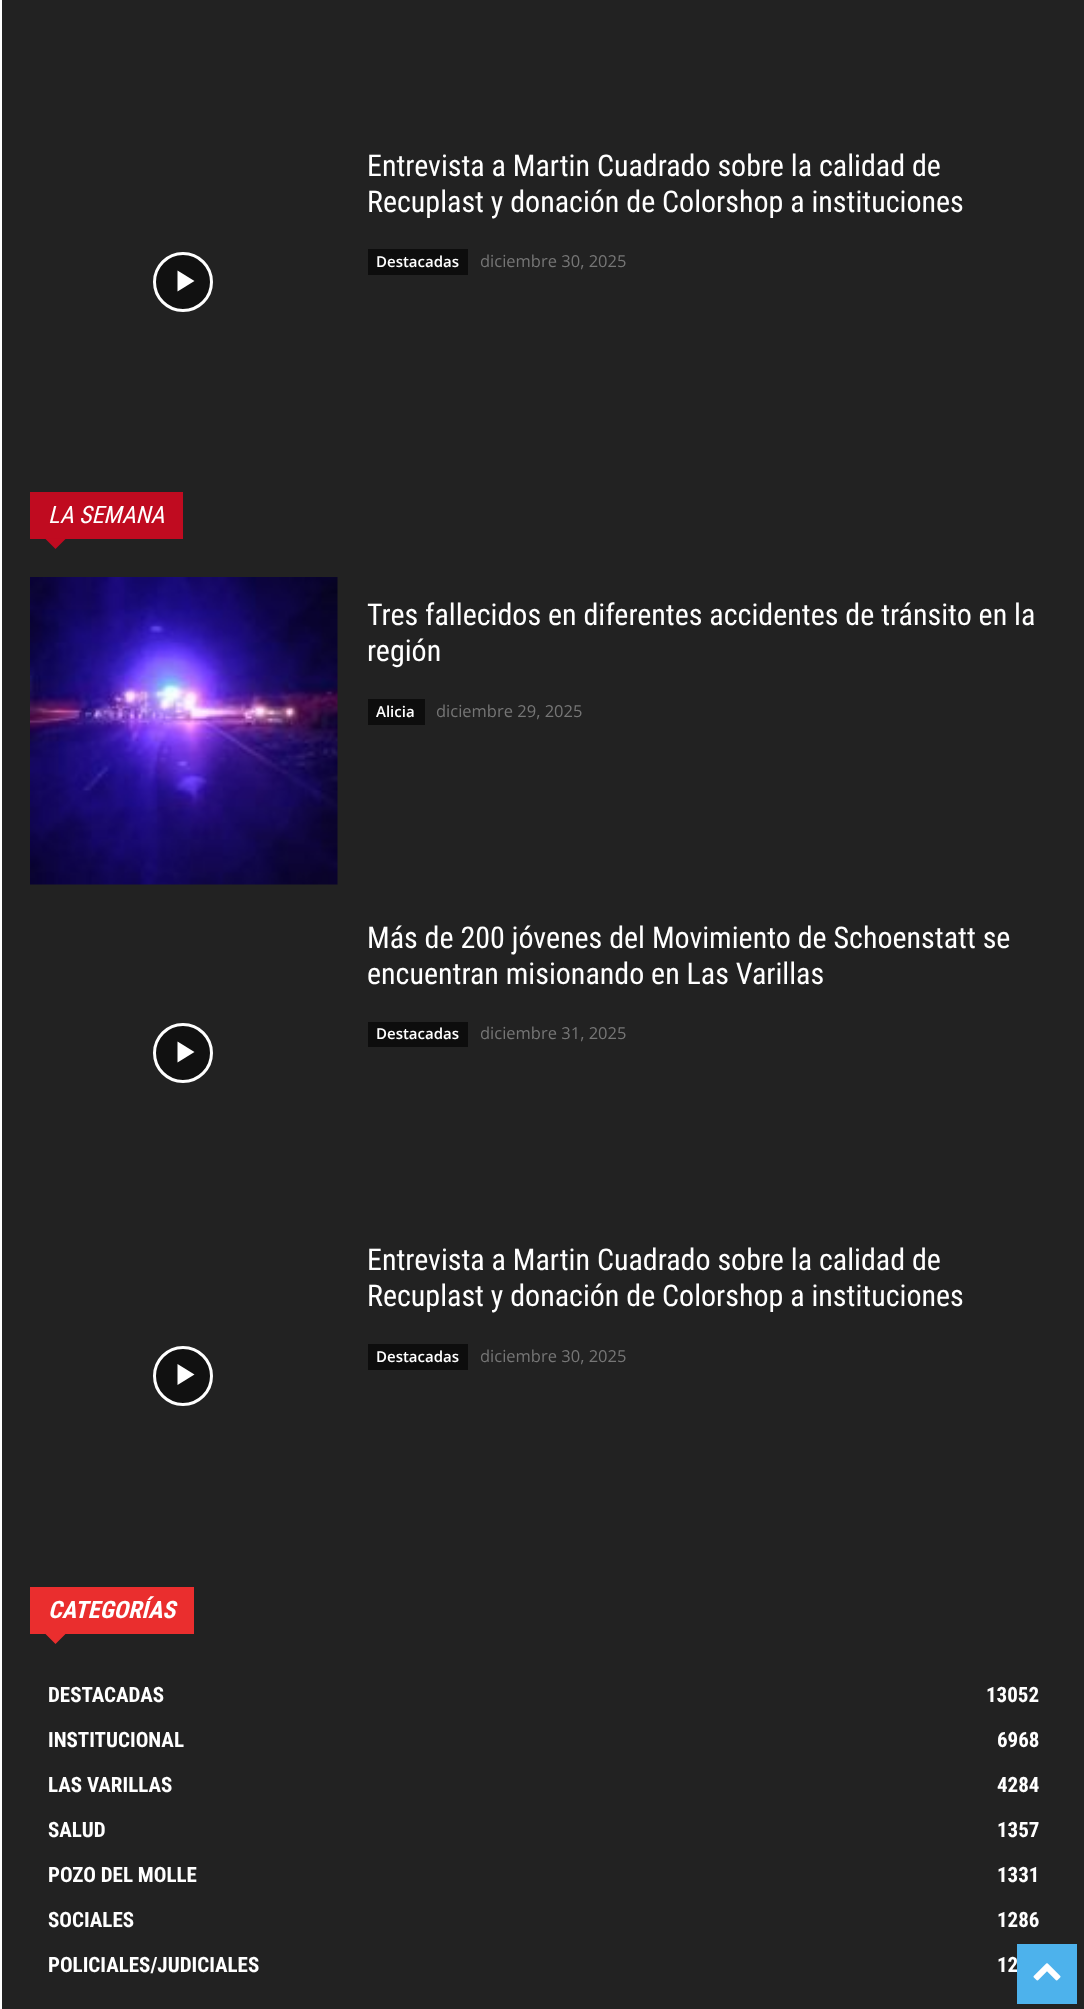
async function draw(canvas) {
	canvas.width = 1084;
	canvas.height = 2009;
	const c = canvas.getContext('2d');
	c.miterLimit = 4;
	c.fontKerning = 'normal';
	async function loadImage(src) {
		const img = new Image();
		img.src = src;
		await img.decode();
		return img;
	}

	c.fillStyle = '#fff';
	c.fillRect(0, 0, 1084, 2009);
	c.fillStyle = '#222';
	c.fillRect(2, 0, 1082, 2009);
	c.font = '30px Roboto Condensed';
	c.fillStyle = '#fff';
	c.fillText('Entrevista a Martin Cuadrado sobre la calidad de', 367, 176);
	c.fillText('Recuplast y donación de Colorshop a instituciones', 367, 212);
	c.fillStyle = '#0d0d0d';
	c.fillRect(368, 249, 100, 26);
	c.font = '600 15px Open Sans';
	c.fillStyle = '#fff';
	c.fillText('Destacadas', 376, 267);
	c.font = '16.5px Open Sans';
	c.fillStyle = '#767676';
	c.fillText('diciembre 30, 2025', 480, 267);
	c.fillStyle = '#0000007a';
	c.beginPath();
	c.arc(183, 282, 28.5, 0, 2 * Math.PI);
	c.fill();
	c.strokeStyle = '#fff';
	c.lineWidth = 3;
	c.stroke();
	c.fillStyle = '#fff';
	c.beginPath();
	c.moveTo(177.5, 270.5);
	c.lineTo(177.5, 291.5);
	c.lineTo(194.5, 281);
	c.closePath();
	c.fill();
	c.fillStyle = '#c00b20';
	c.fillRect(30, 492, 153, 47);
	c.font = 'italic 24px Roboto Condensed';
	c.fillStyle = '#fff';
	c.fillText('LA SEMANA', 48, 523);
	c.fillStyle = '#c00b20';
	c.beginPath();
	c.moveTo(45, 538.5);
	c.lineTo(66, 538.5);
	c.lineTo(55.5, 549);
	c.closePath();
	c.fill();
	c.drawImage(await loadImage('img1.png'), 30, 577, 308, 308);
	c.font = '30px Roboto Condensed';
	c.fillStyle = '#fff';
	c.fillText('Tres fallecidos en diferentes accidentes de tránsito en la', 367, 625);
	c.fillText('región', 367, 661);
	c.fillStyle = '#0d0d0d';
	c.fillRect(368, 699, 57, 26);
	c.font = '600 15px Open Sans';
	c.fillStyle = '#fff';
	c.fillText('Alicia', 376, 717);
	c.font = '16.5px Open Sans';
	c.fillStyle = '#767676';
	c.fillText('diciembre 29, 2025', 436, 717);
	c.font = '30px Roboto Condensed';
	c.fillStyle = '#fff';
	c.fillText('Más de 200 jóvenes del Movimiento de Schoenstatt se', 367, 948);
	c.fillText('encuentran misionando en Las Varillas', 367, 984);
	c.fillStyle = '#0d0d0d';
	c.fillRect(368, 1022, 100, 25);
	c.font = '600 15px Open Sans';
	c.fillStyle = '#fff';
	c.fillText('Destacadas', 376, 1039);
	c.font = '16.5px Open Sans';
	c.fillStyle = '#767676';
	c.fillText('diciembre 31, 2025', 480, 1039);
	c.fillStyle = '#0000007a';
	c.beginPath();
	c.arc(183, 1053, 28.5, 0, 2 * Math.PI);
	c.fill();
	c.stroke();
	c.fillStyle = '#fff';
	c.beginPath();
	c.moveTo(177.5, 1041.5);
	c.lineTo(177.5, 1062.5);
	c.lineTo(194.5, 1052);
	c.closePath();
	c.fill();
	c.font = '30px Roboto Condensed';
	c.fillText('Entrevista a Martin Cuadrado sobre la calidad de', 367, 1270);
	c.fillText('Recuplast y donación de Colorshop a instituciones', 367, 1306);
	c.fillStyle = '#0d0d0d';
	c.fillRect(368, 1344, 100, 26);
	c.font = '600 15px Open Sans';
	c.fillStyle = '#fff';
	c.fillText('Destacadas', 376, 1362);
	c.font = '16.5px Open Sans';
	c.fillStyle = '#767676';
	c.fillText('diciembre 30, 2025', 480, 1362);
	c.fillStyle = '#0000007a';
	c.beginPath();
	c.arc(183, 1376, 28.5, 0, 2 * Math.PI);
	c.fill();
	c.stroke();
	c.fillStyle = '#fff';
	c.beginPath();
	c.moveTo(177.5, 1364);
	c.lineTo(177.5, 1385);
	c.lineTo(194.5, 1374.5);
	c.closePath();
	c.fill();
	c.fillStyle = '#ea2e2e';
	c.fillRect(30, 1587, 164, 47);
	c.font = 'italic bold 24px Roboto Condensed';
	c.fillStyle = '#fff';
	c.fillText('CATEGORÍAS', 48, 1618);
	c.fillStyle = '#ea2e2e';
	c.beginPath();
	c.moveTo(45, 1633.5);
	c.lineTo(66, 1633.5);
	c.lineTo(55.5, 1644);
	c.closePath();
	c.fill();
	c.font = 'bold 21px Roboto Condensed';
	c.fillStyle = '#fff';
	for (const [text, x, y] of [
		['DESTACADAS', 48, 1702],
		['13052', 986, 1702],
		['INSTITUCIONAL', 48, 1747],
		['6968', 997, 1747],
		['LAS VARILLAS', 48, 1792],
		['4284', 997, 1792],
		['SALUD', 48, 1837],
		['1357', 997, 1837],
		['POZO DEL MOLLE', 48, 1882],
		['1331', 997, 1882],
		['SOCIALES', 48, 1927],
		['1286', 997, 1927],
		['POLICIALES/JUDICIALES', 48, 1972],
		['12', 997, 1972],
	]) {
		c.fillText(text, x, y);
	}
	c.fillStyle = '#4db2ec';
	c.fillRect(1017, 1944, 60, 60);
	c.drawImage(await loadImage('img2.png'), 1033, 1963, 28, 18);
}

draw(document.querySelector('canvas'));
